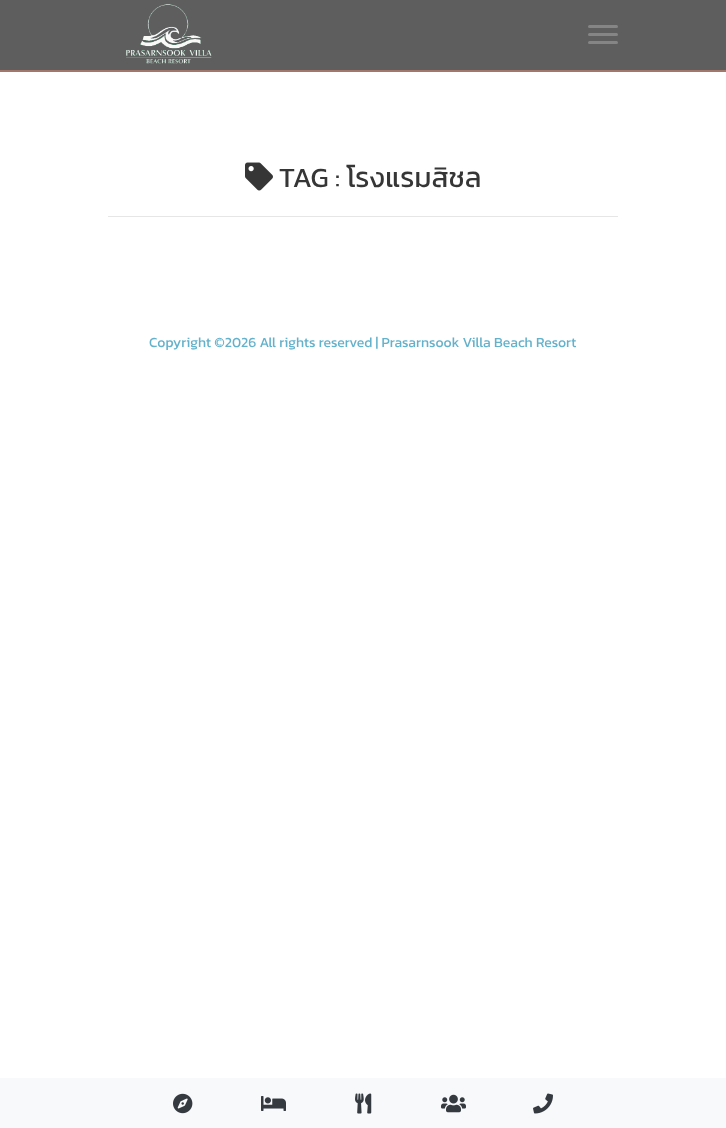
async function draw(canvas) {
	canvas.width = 726;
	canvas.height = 1128;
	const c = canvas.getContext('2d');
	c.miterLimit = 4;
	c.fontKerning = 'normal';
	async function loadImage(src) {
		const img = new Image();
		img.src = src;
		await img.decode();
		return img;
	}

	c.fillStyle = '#fff';
	c.fillRect(0, 0, 726, 1128);
	c.fillStyle = '#5e5e5e';
	c.fillRect(0, 0, 726, 70);
	c.fillStyle = '#a37769';
	c.fillRect(0, 70, 726, 2);
	c.drawImage(await loadImage('img1.png'), 126, 4, 86, 60);
	c.fillStyle = '#858585';
	c.beginPath();
	c.roundRect(588, 25, 30, 3, 1.5);
	c.fill();
	c.beginPath();
	c.roundRect(588, 33, 30, 3, 1.5);
	c.fill();
	c.beginPath();
	c.roundRect(588, 41, 30, 3, 1.5);
	c.fill();
	c.drawImage(await loadImage('img2.png'), 245, 162, 28, 29);
	c.font = '28px Kanit';
	c.fillStyle = '#363636';
	c.fillText('TAG : โรงแรมสิชล', 279, 187);
	c.fillStyle = '#e6e6e6';
	c.fillRect(108, 216, 510, 1);
	c.font = '14px Kanit';
	c.fillStyle = '#63b1cb';
	c.fillText('Copyright ©2026 All rights reserved | Prasarnsook Villa Beach Resort', 149, 347);
	c.fillStyle = '#f8f9fa';
	c.fillRect(0, 1078, 726, 50);
	c.drawImage(await loadImage('img3.png'), 173, 1093, 20, 21);
	c.drawImage(await loadImage('img4.png'), 261, 1096, 25, 15);
	c.drawImage(await loadImage('img5.png'), 355, 1093, 17, 21);
	c.drawImage(await loadImage('img6.png'), 441, 1094, 25, 19);
	c.drawImage(await loadImage('img7.png'), 533, 1093, 20, 21);
}

draw(document.querySelector('canvas'));
